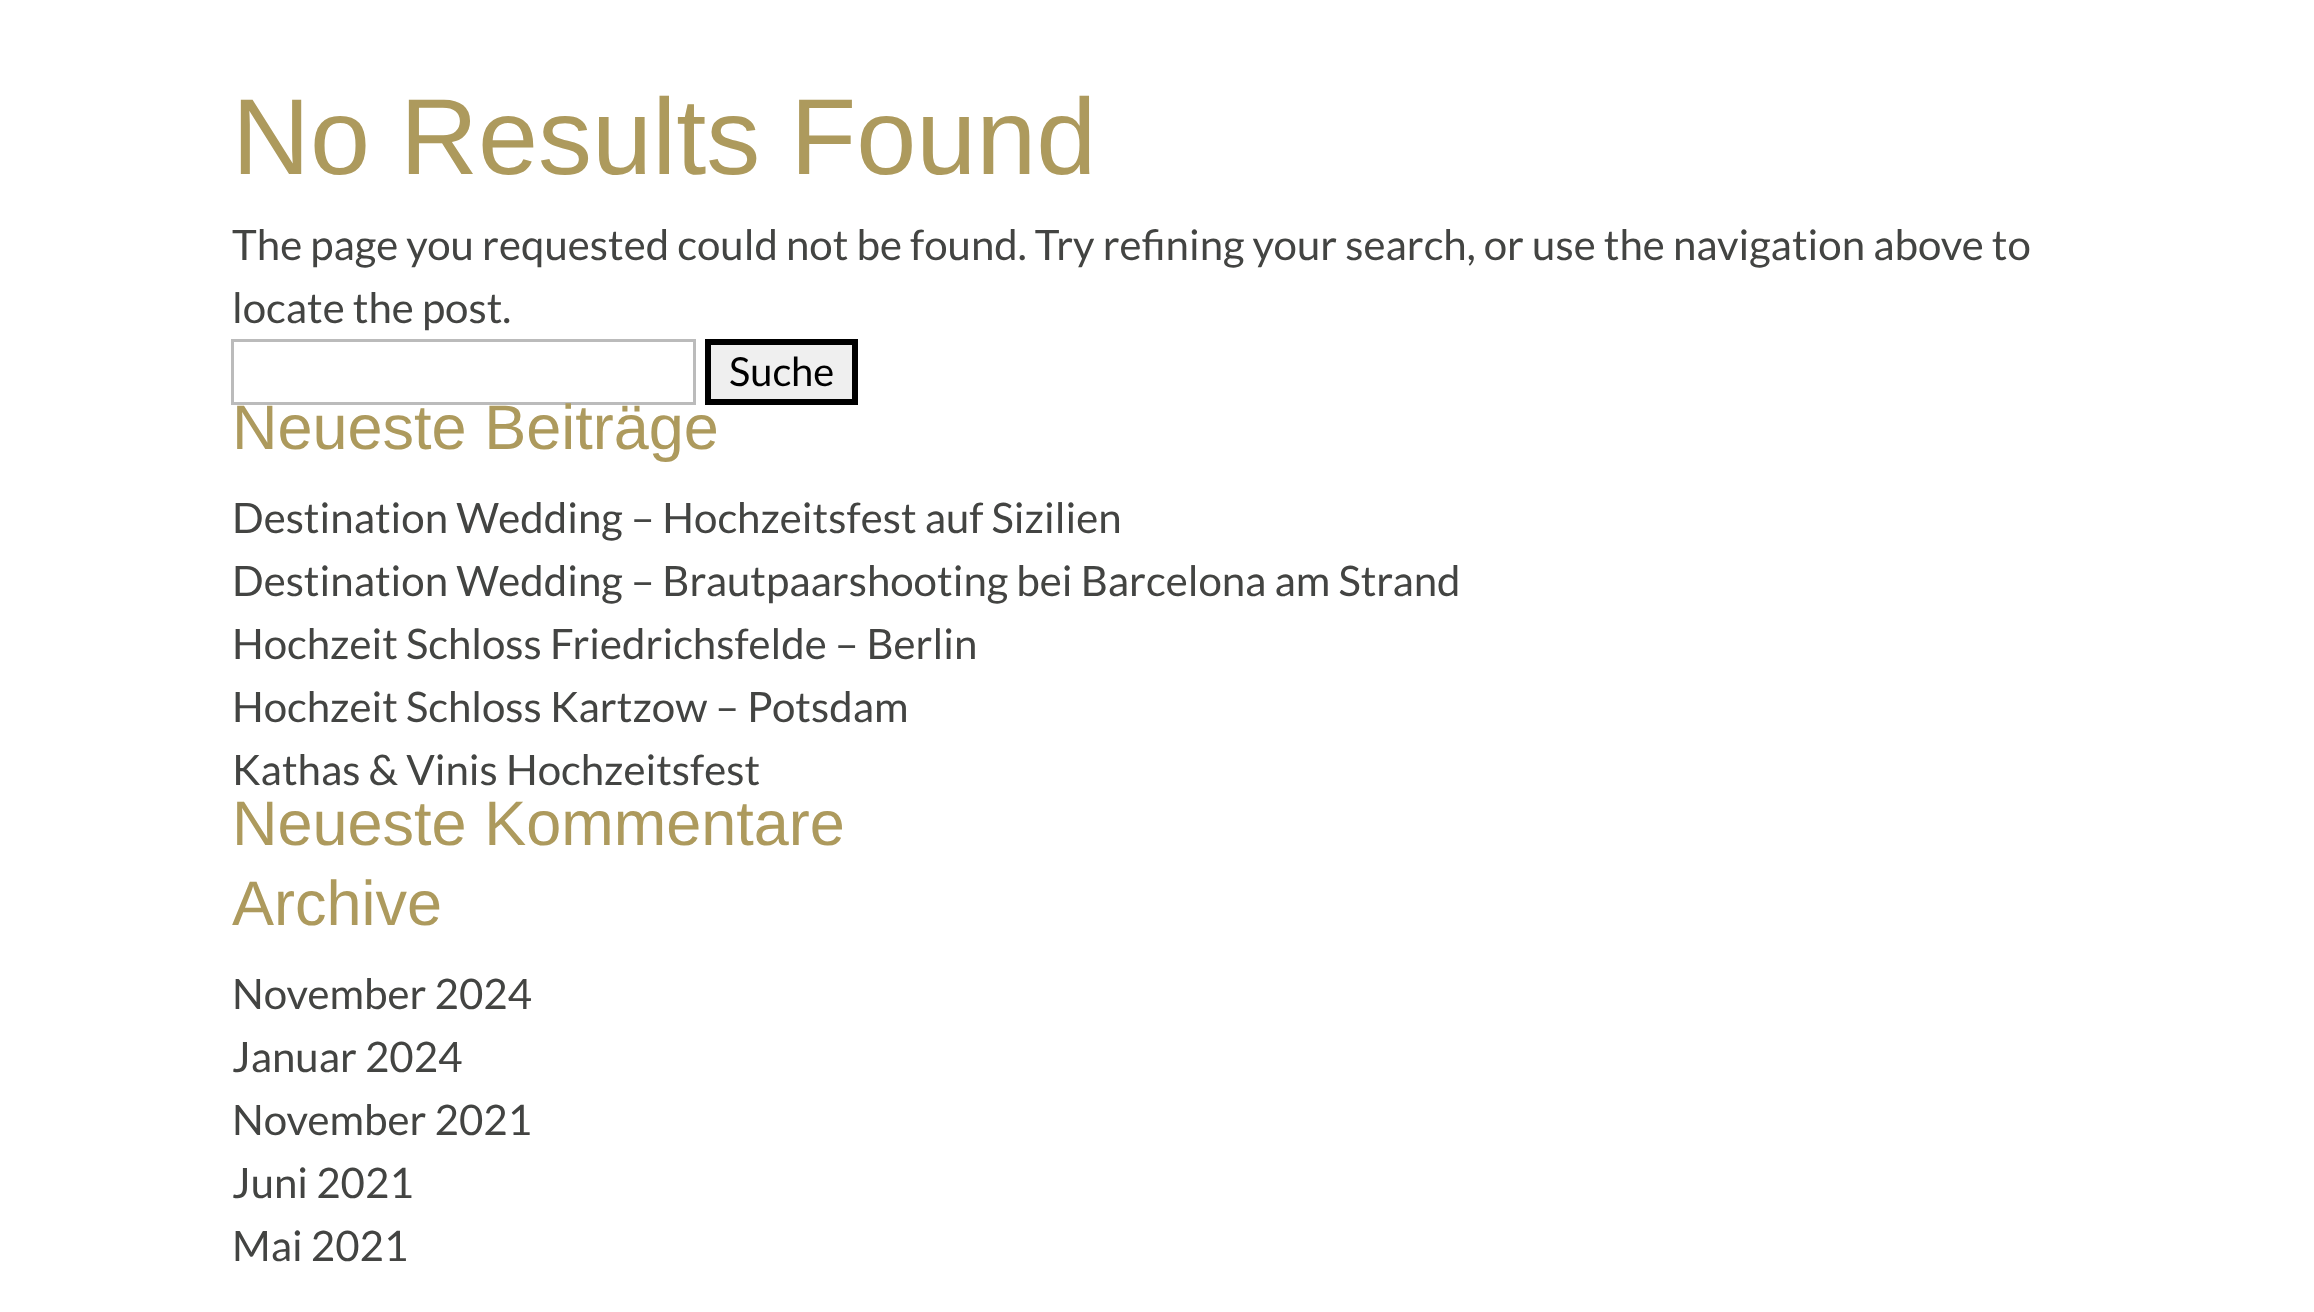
async function draw(canvas) {
	canvas.width = 2314;
	canvas.height = 1312;
	const c = canvas.getContext('2d');
	c.miterLimit = 4;
	c.fontKerning = 'normal';

	c.fillStyle = '#fff';
	c.fillRect(0, 0, 2314, 1312);
	c.font = '108px Liberation Sans';
	c.fillStyle = '#ad9a5d';
	c.fillText('No Results Found', 232, 174);
	c.font = '42px Lato';
	c.fillStyle = '#434442';
	c.fillText('The page you requested could not be found. Try refining your search, or use the navigation above to', 232, 260);
	c.fillText('locate the post.', 232, 323);
	c.strokeStyle = '#bbb';
	c.lineWidth = 3;
	c.strokeRect(232.5, 340.5, 462, 63);
	c.font = '63px Liberation Sans';
	c.fillStyle = '#ad9a5d';
	c.fillText('Neueste Beiträge', 232, 449);
	c.fillStyle = '#efefef';
	c.beginPath();
	c.rect(708, 342, 147, 60);
	c.fill();
	c.strokeStyle = '#000';
	c.lineWidth = 6;
	c.stroke();
	c.font = '40px Lato';
	c.fillStyle = '#000';
	c.fillText('Suche', 729, 386);
	c.font = '42px Lato';
	c.fillStyle = '#434442';
	for (const [text, x, y] of [
		['Destination Wedding – Hochzeitsfest auf Sizilien', 232, 533],
		['Destination Wedding – Brautpaarshooting bei Barcelona am Strand', 232, 596],
		['Hochzeit Schloss Friedrichsfelde – Berlin', 232, 659],
		['Hochzeit Schloss Kartzow – Potsdam', 232, 722],
		['Kathas & Vinis Hochzeitsfest', 232, 785],
	]) {
		c.fillText(text, x, y);
	}
	c.font = '63px Liberation Sans';
	c.fillStyle = '#ad9a5d';
	c.fillText('Neueste Kommentare', 232, 845);
	c.fillText('Archive', 232, 925);
	c.font = '42px Lato';
	c.fillStyle = '#434442';
	for (const [text, x, y] of [
		['November 2024', 232, 1009],
		['Januar 2024', 232, 1072],
		['November 2021', 232, 1135],
		['Juni 2021', 232, 1198],
		['Mai 2021', 232, 1261],
	]) {
		c.fillText(text, x, y);
	}
}

draw(document.querySelector('canvas'));
